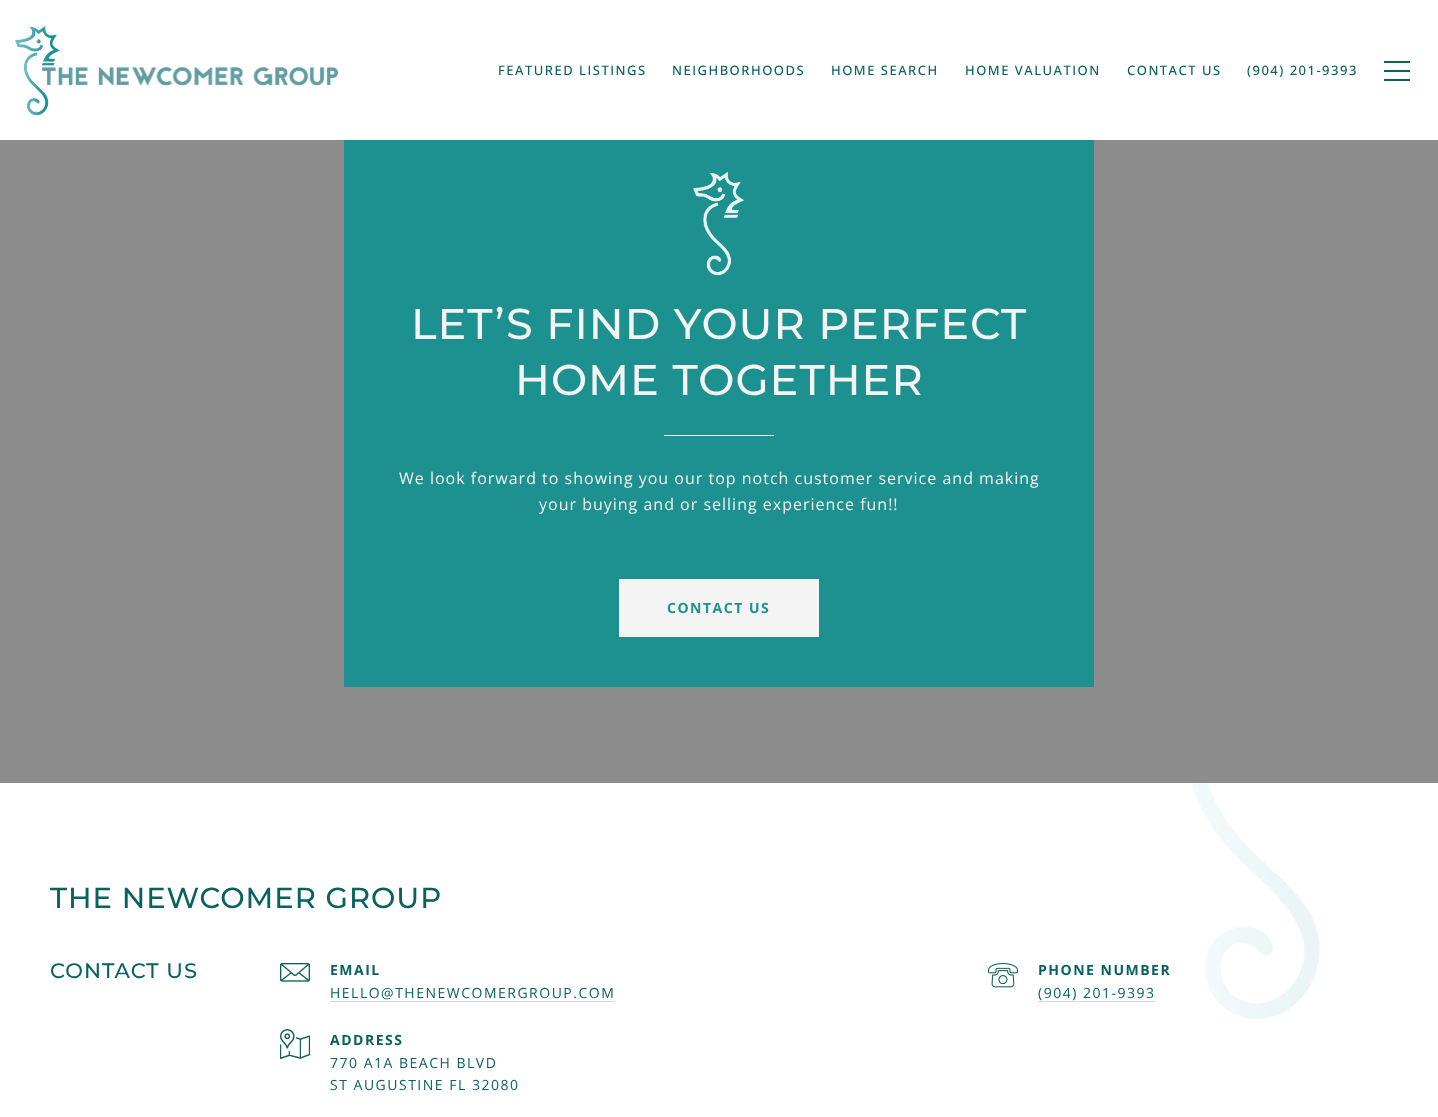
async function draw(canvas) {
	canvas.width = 1438;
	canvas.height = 1117;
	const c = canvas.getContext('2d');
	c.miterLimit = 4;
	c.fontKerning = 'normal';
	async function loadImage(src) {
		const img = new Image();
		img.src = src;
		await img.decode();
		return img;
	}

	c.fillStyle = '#fff';
	c.fillRect(0, 0, 1438, 1117);
	c.drawImage(await loadImage('img1.png'), 15, 26, 323, 90);
	c.letterSpacing = '1.5px';
	c.font = '500 13px Open Sans';
	c.fillStyle = '#076261';
	for (const [text, x, y] of [
		['FEATURED LISTINGS', 498, 75],
		['NEIGHBORHOODS', 672, 75],
		['HOME SEARCH', 831, 75],
		['HOME VALUATION', 965, 75],
		['CONTACT US', 1127, 75],
		['(904) 201-9393', 1247, 75],
	]) {
		c.fillText(text, x, y);
	}
	for (const [x, y, w, h, color] of [
		[1384, 70, 26, 2, '#0e6350'],
		[1384, 61, 26, 2, '#0e6350'],
		[1384, 79, 26, 2, '#0e6350'],
		[0, 140, 1438, 643, '#8d8d8d'],
		[344, 140, 750, 547, '#1d9090'],
	]) {
		c.fillStyle = color;
		c.fillRect(x, y, w, h);
	}
	c.drawImage(await loadImage('img2.png'), 693, 172, 51, 104);
	c.letterSpacing = '1px';
	c.font = '500 43px Montserrat';
	c.fillStyle = '#f4f4f4';
	c.fillText('LET’S FIND YOUR PERFECT', 411, 339);
	c.fillText('HOME TOGETHER', 515, 395);
	c.fillRect(664, 435, 110, 1);
	c.font = '16px Open Sans';
	c.fillText('We look forward to showing you our top notch customer service and making', 399, 484);
	c.fillText('your buying and or selling experience fun!!', 539, 510);
	c.fillRect(619, 579, 200, 58);
	c.letterSpacing = '1.5px';
	c.font = 'bold 14px Open Sans';
	c.fillStyle = '#1d9090';
	c.fillText('CONTACT US', 667, 613);
	c.letterSpacing = '1px';
	c.font = '500 29px Montserrat';
	c.fillStyle = '#076261';
	c.fillText('THE NEWCOMER GROUP', 50, 908);
	c.font = '500 21px Montserrat';
	c.fillText('CONTACT US', 50, 978);
	c.drawImage(await loadImage('img3.png'), 280, 963, 30, 19);
	c.letterSpacing = '1.5px';
	c.font = 'bold 14px Open Sans';
	c.fillText('EMAIL', 330, 975);
	c.font = '14px Open Sans';
	c.fillText('HELLO@THENEWCOMERGROUP.COM', 330, 998);
	c.fillStyle = '#d6d6d6';
	c.fillRect(330, 1001, 285, 1);
	c.drawImage(await loadImage('img4.png'), 988, 963, 30, 25);
	c.font = 'bold 14px Open Sans';
	c.fillStyle = '#076261';
	c.fillText('PHONE NUMBER', 1038, 975);
	c.font = '14px Open Sans';
	c.fillText('(904) 201-9393', 1038, 998);
	c.fillStyle = '#d6d6d6';
	c.fillRect(1038, 1001, 117, 1);
	c.drawImage(await loadImage('img5.png'), 280, 1029, 31, 30);
	c.font = 'bold 14px Open Sans';
	c.fillStyle = '#076261';
	c.fillText('ADDRESS', 330, 1045);
	c.font = '14px Open Sans';
	c.fillText('770 A1A BEACH BLVD', 330, 1068);
	c.fillText('ST AUGUSTINE FL 32080', 330, 1090);
	c.drawImage(await loadImage('img6.png'), 1192, 783, 128, 236);
}

draw(document.querySelector('canvas'));
